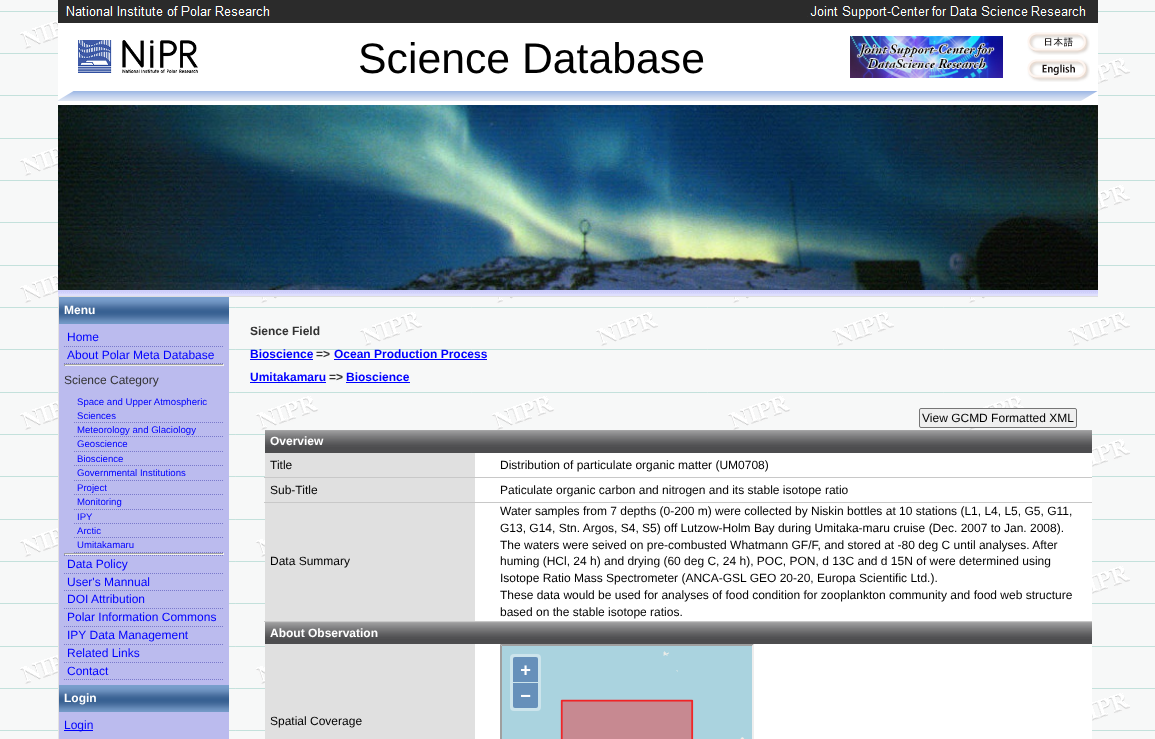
async function draw(canvas) {
	canvas.width = 1155;
	canvas.height = 739;
	const c = canvas.getContext('2d');
	c.miterLimit = 4;
	c.fontKerning = 'normal';
	async function loadImage(src) {
		const img = new Image();
		img.src = src;
		await img.decode();
		return img;
	}

	c.fillStyle = '#fff';
	c.fillRect(0, 0, 1155, 739);
	c.drawImage(await loadImage('img1.png'), 0, 0, 1155, 739);
	c.drawImage(await loadImage('img2.png'), 58, 0, 1040, 23);
	c.fillRect(58, 23, 1040, 82);
	c.drawImage(await loadImage('img3.png'), 78, 40, 120, 33);
	c.font = '42.75px Liberation Sans';
	c.fillStyle = '#000';
	c.fillText('Science Database', 358, 73);
	c.drawImage(await loadImage('img4.png'), 850, 36, 153, 42);
	c.drawImage(await loadImage('img5.png'), 1027, 32, 63, 23);
	c.drawImage(await loadImage('img6.png'), 1027, 59, 63, 23);
	c.drawImage(await loadImage('img7.png'), 58, 91, 1040, 10);
	c.drawImage(await loadImage('img8.png'), 58, 105, 1040, 185);
	c.drawImage(await loadImage('img9.png'), 58, 290, 1040, 6);
	for (const [x, y, w, h, color] of [
		[58, 296, 1040, 1, '#ddd'],
		[59, 324, 170, 415, '#bbe'],
		[58, 297, 1, 442, '#e3e1e1'],
	]) {
		c.fillStyle = color;
		c.fillRect(x, y, w, h);
	}
	c.drawImage(await loadImage('img10.png'), 59, 297, 170, 27);
	c.font = 'bold 12px Liberation Sans';
	c.fillStyle = '#fff';
	c.fillText('Menu', 64, 314);
	c.beginPath();
	c.moveTo(64, 346.5);
	c.lineTo(224, 346.5);
	c.strokeStyle = '#7a7acc';
	c.setLineDash([1, 1]);
	c.stroke();
	c.font = '12px Liberation Sans';
	c.fillStyle = '#00f';
	c.fillText('Home', 67, 341);
	c.beginPath();
	c.moveTo(64, 363.5);
	c.lineTo(224, 363.5);
	c.stroke();
	c.fillText('About Polar Meta Database', 67, 359);
	for (const [x, y, w, h, color] of [
		[64, 364, 160, 1, '#9f9f9f'],
		[223, 364, 1, 2, '#eee'],
		[64, 365, 160, 1, '#eee'],
		[64, 364, 1, 2, '#9f9f9f'],
	]) {
		c.fillStyle = color;
		c.fillRect(x, y, w, h);
	}
	c.fillStyle = '#333';
	c.fillText('Science Category', 64, 384);
	c.beginPath();
	c.moveTo(74, 422.5);
	c.lineTo(224, 422.5);
	c.stroke();
	c.font = '9.6px Liberation Sans';
	c.fillStyle = '#00f';
	c.fillText('Space and Upper Atmospheric', 77, 405);
	c.fillText('Sciences', 77, 419);
	c.beginPath();
	c.moveTo(74, 436.5);
	c.lineTo(224, 436.5);
	c.stroke();
	c.fillText('Meteorology and Glaciology', 77, 433);
	c.beginPath();
	c.moveTo(74, 451.5);
	c.lineTo(224, 451.5);
	c.stroke();
	c.fillText('Geoscience', 77, 447);
	c.beginPath();
	c.moveTo(74, 465.5);
	c.lineTo(224, 465.5);
	c.stroke();
	c.fillText('Bioscience', 77, 462);
	c.beginPath();
	c.moveTo(74, 480.5);
	c.lineTo(224, 480.5);
	c.stroke();
	c.fillText('Governmental Institutions', 77, 476);
	c.beginPath();
	c.moveTo(74, 494.5);
	c.lineTo(224, 494.5);
	c.stroke();
	c.fillText('Project', 77, 491);
	c.beginPath();
	c.moveTo(74, 509.5);
	c.lineTo(224, 509.5);
	c.stroke();
	c.fillText('Monitoring', 77, 505);
	c.beginPath();
	c.moveTo(74, 523.5);
	c.lineTo(224, 523.5);
	c.stroke();
	c.fillText('IPY', 77, 520);
	c.beginPath();
	c.moveTo(74, 537.5);
	c.lineTo(224, 537.5);
	c.stroke();
	c.fillText('Arctic', 77, 534);
	c.beginPath();
	c.moveTo(74, 552.5);
	c.lineTo(224, 552.5);
	c.stroke();
	c.fillText('Umitakamaru', 77, 548);
	for (const [x, y, w, h, color] of [
		[64, 553, 160, 1, '#9f9f9f'],
		[223, 553, 1, 2, '#eee'],
		[64, 554, 160, 1, '#eee'],
		[64, 553, 1, 2, '#9f9f9f'],
	]) {
		c.fillStyle = color;
		c.fillRect(x, y, w, h);
	}
	c.beginPath();
	c.moveTo(64, 555.5);
	c.lineTo(224, 555.5);
	c.stroke();
	c.beginPath();
	c.moveTo(64, 573.5);
	c.lineTo(224, 573.5);
	c.stroke();
	c.font = '12px Liberation Sans';
	c.fillStyle = '#00f';
	c.fillText('Data Policy', 67, 568);
	c.beginPath();
	c.moveTo(64, 590.5);
	c.lineTo(224, 590.5);
	c.stroke();
	c.fillText('User\'s Mannual', 67, 586);
	c.beginPath();
	c.moveTo(64, 608.5);
	c.lineTo(224, 608.5);
	c.stroke();
	c.fillText('DOI Attribution', 67, 603);
	c.beginPath();
	c.moveTo(64, 626.5);
	c.lineTo(224, 626.5);
	c.stroke();
	c.fillText('Polar Information Commons', 67, 621);
	c.beginPath();
	c.moveTo(64, 644.5);
	c.lineTo(224, 644.5);
	c.stroke();
	c.fillText('IPY Data Management', 67, 639);
	c.beginPath();
	c.moveTo(64, 662.5);
	c.lineTo(224, 662.5);
	c.stroke();
	c.fillText('Related Links', 67, 657);
	c.beginPath();
	c.moveTo(64, 679.5);
	c.lineTo(224, 679.5);
	c.stroke();
	c.fillText('Contact', 67, 675);
	c.drawImage(await loadImage('img10.png'), 59, 685, 170, 27);
	c.font = 'bold 12px Liberation Sans';
	c.fillStyle = '#fff';
	c.fillText('Login', 64, 702);
	c.fillStyle = '#00f';
	c.fillRect(64, 730, 29, 1);
	c.font = '12px Liberation Sans';
	c.fillText('Login', 64, 729);
	c.font = 'bold 12px Liberation Sans';
	c.fillStyle = '#333';
	c.fillText('Sience Field', 250, 335);
	c.fillStyle = '#00f';
	c.fillText('Bioscience', 250, 358);
	c.fillRect(250, 359, 63, 1);
	c.fillStyle = '#333';
	c.fillText('=>', 316, 358);
	c.fillStyle = '#00f';
	c.fillText('Ocean Production Process', 334, 358);
	c.fillRect(334, 359, 153, 1);
	c.fillText('Umitakamaru', 250, 381);
	c.fillRect(250, 382, 76, 1);
	c.fillStyle = '#333';
	c.fillText('=>', 329, 381);
	c.fillStyle = '#00f';
	c.fillText('Bioscience', 346, 381);
	c.fillRect(346, 382, 64, 1);
	c.fillStyle = '#efefef';
	c.beginPath();
	c.roundRect(919.5, 408.5, 157, 19, 1.5);
	c.fill();
	c.strokeStyle = '#767676';
	c.setLineDash([]);
	c.stroke();
	c.font = '12px Liberation Sans';
	c.fillStyle = '#000';
	c.fillText('View GCMD Formatted XML', 922, 422);
	c.drawImage(await loadImage('img11.png'), 265, 430, 210, 23);
	c.font = 'bold 12px Liberation Sans';
	c.fillStyle = '#fff';
	c.fillText('Overview', 270, 445);
	c.drawImage(await loadImage('img12.png'), 475, 430, 617, 23);
	c.fillStyle = '#e0e0e0';
	c.fillRect(265, 453, 210, 24);
	c.font = '12px Liberation Sans';
	c.fillStyle = '#000';
	c.fillText('Title', 270, 469);
	c.fillStyle = '#fff';
	c.fillRect(475, 453, 617, 24);
	c.fillStyle = '#c8c8c8';
	c.fillRect(264, 477, 828, 1);
	c.fillStyle = '#000';
	c.fillText('Distribution of particulate organic matter (UM0708)', 500, 469);
	c.fillStyle = '#e0e0e0';
	c.fillRect(265, 478, 210, 24);
	c.fillStyle = '#000';
	c.fillText('Sub-Title', 270, 494);
	c.fillStyle = '#fff';
	c.fillRect(475, 478, 617, 24);
	c.fillStyle = '#c8c8c8';
	c.fillRect(264, 502, 828, 1);
	c.fillStyle = '#000';
	c.fillText('Paticulate organic carbon and nitrogen and its stable isotope ratio', 500, 494);
	c.fillStyle = '#e0e0e0';
	c.fillRect(265, 503, 210, 118);
	c.fillStyle = '#000';
	c.fillText('Data Summary', 270, 565);
	c.fillStyle = '#fff';
	c.fillRect(475, 503, 617, 118);
	c.fillStyle = '#c8c8c8';
	c.fillRect(264, 621, 828, 1);
	c.fillStyle = '#000';
	for (const [text, x, y] of [
		['Water samples from 7 depths (0-200 m) were collected by Niskin bottles at 10 stations (L1, L4, L5, G5, G11,', 500, 515],
		['G13, G14, Stn. Argos, S4, S5) off Lutzow-Holm Bay during Umitaka-maru cruise (Dec. 2007 to Jan. 2008).', 500, 532],
		['The waters were seived on pre-combusted Whatmann GF/F, and stored at -80 deg C until analyses. After', 500, 549],
		['huming (HCl, 24 h) and drying (60 deg C, 24 h), POC, PON, d 13C and d 15N of were determined using', 500, 565],
		['Isotope Ratio Mass Spectrometer (ANCA-GSL GEO 20-20, Europa Scientific Ltd.).', 500, 582],
		['These data would be used for analyses of food condition for zooplankton community and food web structure', 500, 599],
		['based on the stable isotope ratios.', 500, 616],
	]) {
		c.fillText(text, x, y);
	}
	c.drawImage(await loadImage('img13.png'), 265, 622, 210, 22);
	c.font = 'bold 12px Liberation Sans';
	c.fillStyle = '#fff';
	c.fillText('About Observation', 270, 637);
	c.drawImage(await loadImage('img14.png'), 475, 622, 617, 22);
	c.fillStyle = '#e0e0e0';
	c.fillRect(265, 644, 210, 95);
	c.font = '12px Liberation Sans';
	c.fillStyle = '#000';
	c.fillText('Spatial Coverage', 270, 725);
	c.fillStyle = '#fff';
	c.fillRect(475, 644, 617, 95);
	c.fillStyle = '#9f9f9f';
	c.beginPath();
	c.moveTo(500, 644);
	c.lineTo(754, 644);
	c.lineTo(752, 646);
	c.lineTo(502, 646);
	c.closePath();
	c.fill();
	c.beginPath();
	c.moveTo(500, 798);
	c.lineTo(500, 644);
	c.lineTo(502, 646);
	c.lineTo(502, 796);
	c.closePath();
	c.fill();
	c.drawImage(await loadImage('img15.png'), 502, 646, 250, 93);
	c.fillStyle = '#eee';
	c.beginPath();
	c.moveTo(754, 644);
	c.lineTo(754, 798);
	c.lineTo(752, 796);
	c.lineTo(752, 646);
	c.closePath();
	c.fill();
}

draw(document.querySelector('canvas'));
